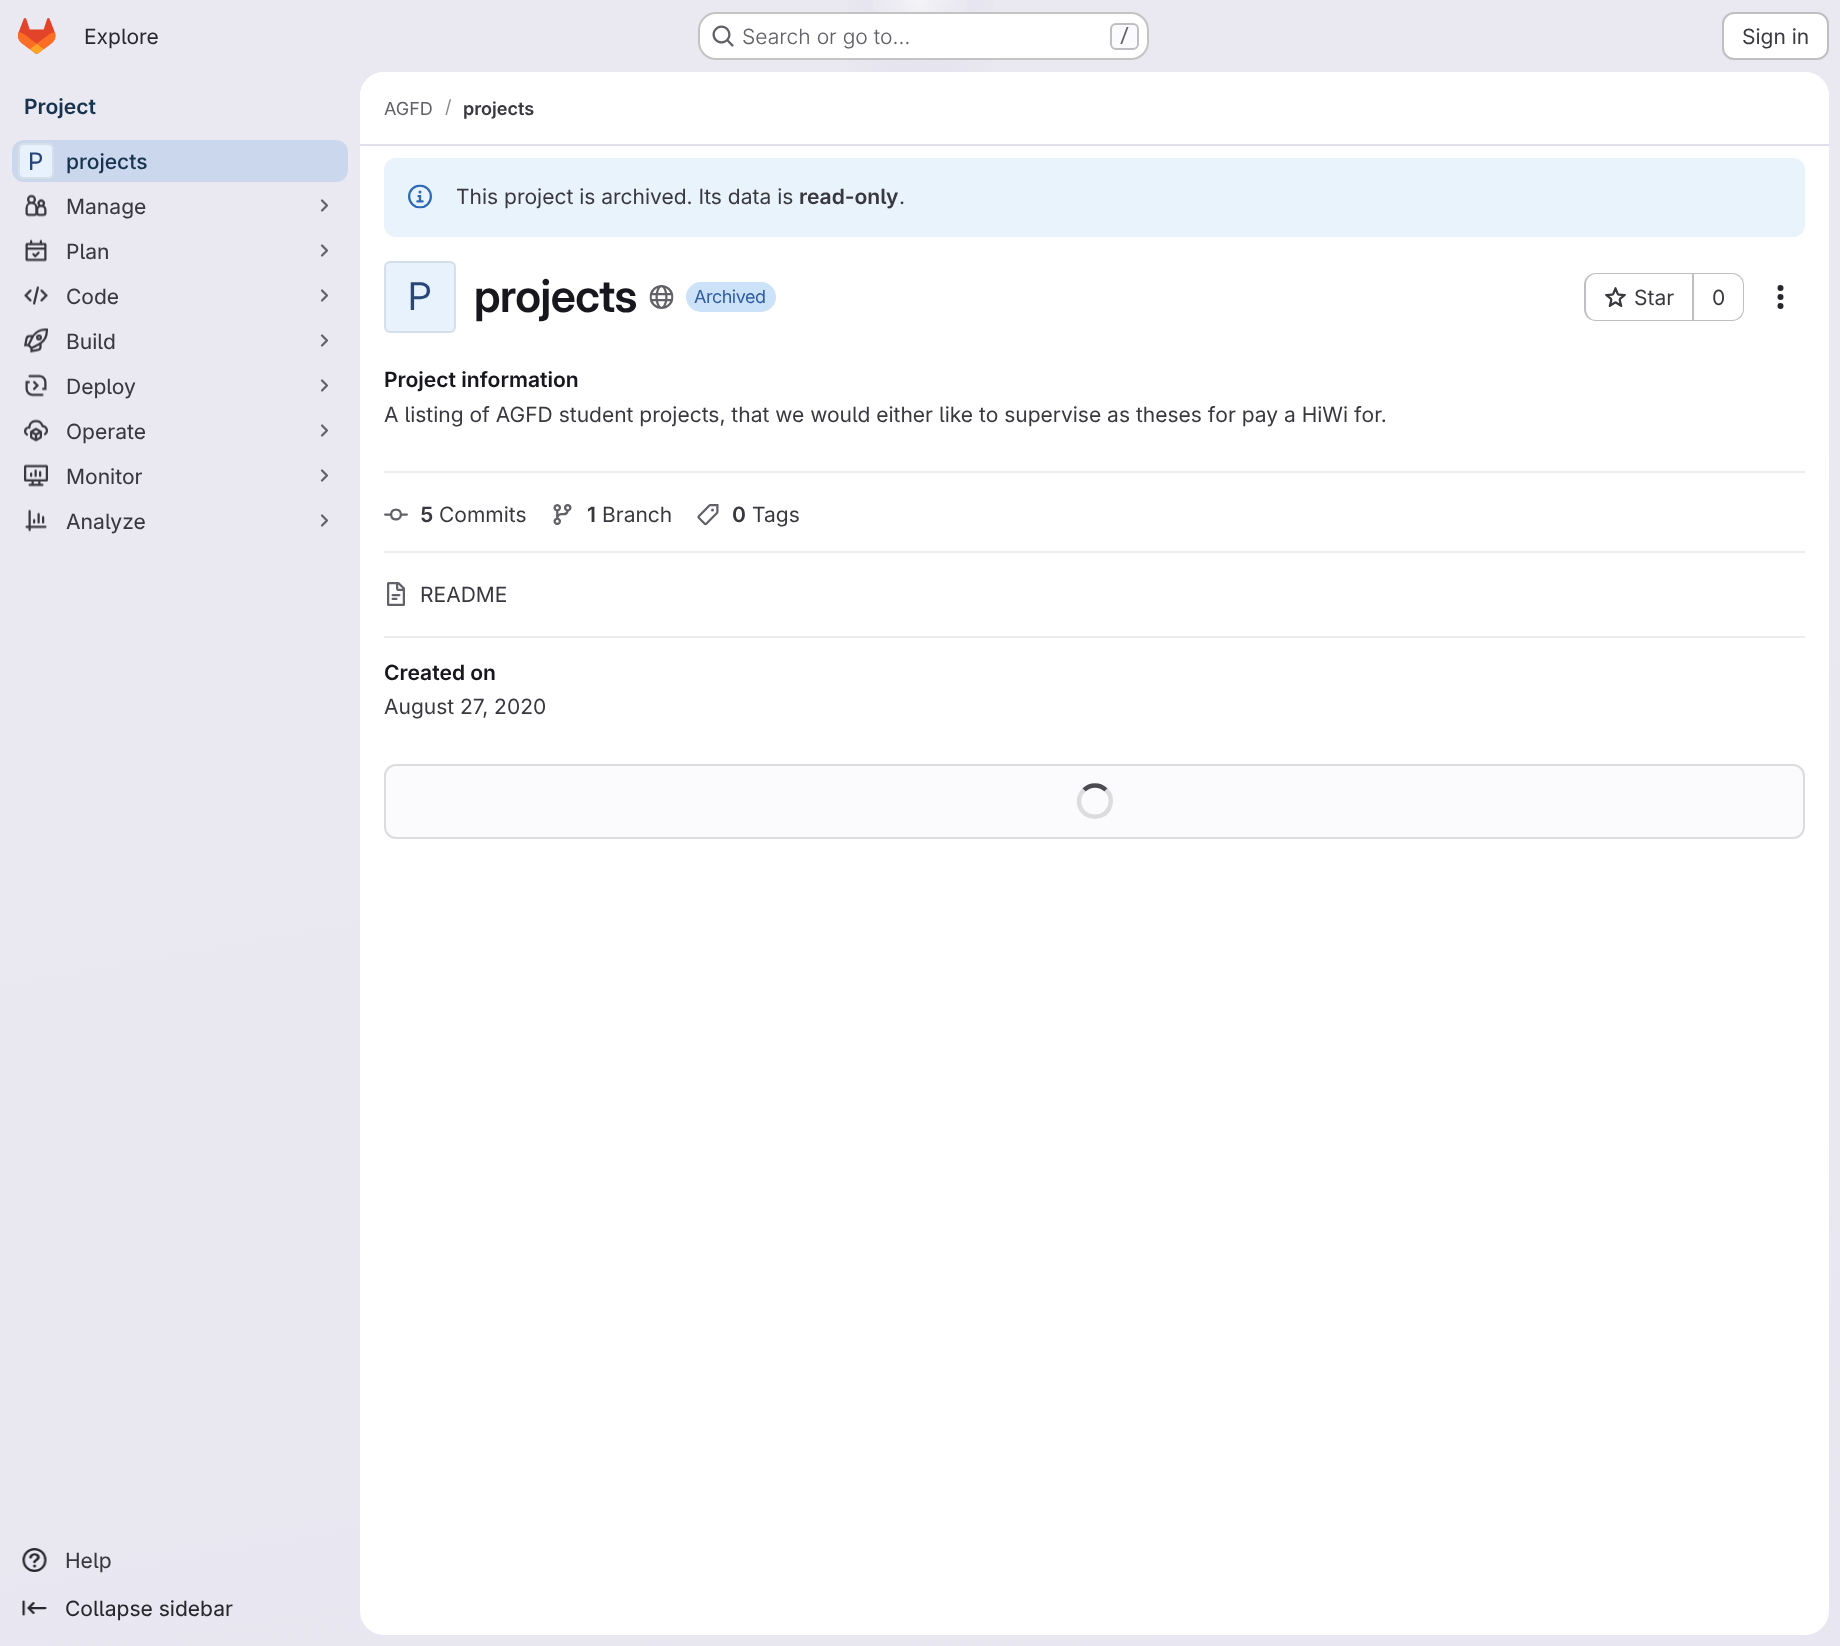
async function draw(canvas) {
	canvas.width = 1840;
	canvas.height = 1646;
	const c = canvas.getContext('2d');
	c.miterLimit = 4;
	c.fontKerning = 'normal';
	async function loadImage(src) {
		const img = new Image();
		img.src = src;
		await img.decode();
		return img;
	}
	let gradient;

	c.fillStyle = '#fff';
	c.fillRect(0, 0, 1840, 1646);
	gradient = c.createLinearGradient(1089, 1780, 752, -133);
	gradient.addColorStop(0, '#e8e6f0');
	gradient.addColorStop(0.7, '#eae9f2');
	c.fillStyle = gradient;
	c.fillRect(0, 0, 1840, 1646);
	gradient = c.createRadialGradient(920, 0, 0, 920, 0, 920);
	gradient.addColorStop(0, '#e4e2ed');
	gradient.addColorStop(0.11, '#e4e2ed00');
	c.fillStyle = gradient;
	c.beginPath();
	c.rect(847, 0, 146, 72);
	c.save();
	c.clip();
	c.scale(1, 1647 / 920);
	c.fillRect(0, 0, 1840, 920);
	c.restore();
	gradient = c.createRadialGradient(920, 0, 0, 920, 0, 920);
	gradient.addColorStop(0, '#e4e2ec');
	gradient.addColorStop(0.08, '#e4e2ec00');
	c.fillStyle = gradient;
	c.beginPath();
	c.rect(889, 2, 62, 52);
	c.save();
	c.clip();
	c.scale(1, 1647 / 920);
	c.fillRect(0, 0, 1840, 920);
	c.restore();
	gradient = c.createRadialGradient(920, 0, 0, 920, 0, 1887);
	gradient.addColorStop(0, '#ffffff99');
	gradient.addColorStop(0.03, '#ffffff00');
	c.fillStyle = gradient;
	c.fillRect(873, 0, 94, 12);
	c.drawImage(await loadImage('img1.png'), 18, 18, 38, 36);
	c.font = '21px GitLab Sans';
	c.fillStyle = '#28272d';
	c.fillText('Explore', 84, 44);
	c.fillStyle = '#fff';
	c.beginPath();
	c.roundRect(698, 12, 451, 48, 18);
	c.fill();
	c.beginPath();
	c.roundRect(699, 13, 449, 46, 17);
	c.strokeStyle = '#0505063d';
	c.lineWidth = 2;
	c.stroke();
	c.drawImage(await loadImage('img2.png'), 712, 25, 22, 22);
	c.font = '300 21px GitLab Sans';
	c.fillStyle = '#626168';
	c.fillText('Search or go to…', 742, 44);
	c.fillStyle = '#fbfafd';
	c.beginPath();
	c.roundRect(1111, 24, 27, 25, 5);
	c.fill();
	c.strokeStyle = '#bfbfc3';
	c.stroke();
	c.font = '500 18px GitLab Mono';
	c.fillStyle = '#626168';
	c.fillText('/', 1119, 42);
	c.fillStyle = '#fff';
	c.beginPath();
	c.roundRect(1723, 13, 105, 46, 11);
	c.fill();
	c.stroke();
	c.font = '21px GitLab Sans';
	c.fillStyle = '#3a383f';
	c.fillText('Sign in', 1742, 44);
	c.font = '600 21px "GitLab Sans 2"';
	c.fillStyle = '#18334e';
	c.fillText('Project', 24, 114);
	c.fillStyle = '#cad7ec';
	c.beginPath();
	c.roundRect(12, 140, 336, 42, 12);
	c.fill();
	c.fillStyle = '#fff';
	c.beginPath();
	c.roundRect(18, 143, 36, 36, 6);
	c.fill();
	c.fillStyle = '#9dc7f13d';
	c.beginPath();
	c.roundRect(18, 143, 36, 36, 6);
	c.fill();
	c.beginPath();
	c.roundRect(19, 144, 34, 34, 5);
	c.strokeStyle = '#05050614';
	c.stroke();
	c.font = '24px "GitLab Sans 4"';
	c.fillStyle = '#284779';
	c.fillText('P', 28, 170);
	c.font = '500 21px GitLab Sans';
	c.fillStyle = '#18334e';
	c.fillText('projects', 66, 169);
	c.drawImage(await loadImage('img3.png'), 25, 194, 22, 23);
	c.font = '21px "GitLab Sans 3"';
	c.fillStyle = '#3a383f';
	c.fillText('Manage', 66, 214);
	c.beginPath();
	c.moveTo(322, 200.5);
	c.lineTo(327, 205.5);
	c.lineTo(322, 210.5);
	c.strokeStyle = '#626168';
	c.lineWidth = 2.2;
	c.lineCap = 'round';
	c.lineJoin = 'round';
	c.stroke();
	c.drawImage(await loadImage('img4.png'), 25, 239, 22, 23);
	c.fillText('Plan', 66, 259);
	c.beginPath();
	c.moveTo(322, 245.5);
	c.lineTo(327, 250.5);
	c.lineTo(322, 255.5);
	c.stroke();
	c.drawImage(await loadImage('img5.png'), 24, 286, 24, 19);
	c.fillText('Code', 66, 304);
	c.beginPath();
	c.moveTo(322, 290.5);
	c.lineTo(327, 295.5);
	c.lineTo(322, 300.5);
	c.stroke();
	c.drawImage(await loadImage('img6.png'), 24, 328, 24, 25);
	c.fillText('Build', 66, 349);
	c.beginPath();
	c.moveTo(322, 335.5);
	c.lineTo(327, 340.5);
	c.lineTo(322, 345.5);
	c.stroke();
	c.drawImage(await loadImage('img7.png'), 25, 374, 22, 23);
	c.fillText('Deploy', 66, 394);
	c.beginPath();
	c.moveTo(322, 380.5);
	c.lineTo(327, 385.5);
	c.lineTo(322, 390.5);
	c.stroke();
	c.drawImage(await loadImage('img8.png'), 24, 419, 24, 23);
	c.fillText('Operate', 66, 439);
	c.beginPath();
	c.moveTo(322, 425.5);
	c.lineTo(327, 430.5);
	c.lineTo(322, 435.5);
	c.stroke();
	c.drawImage(await loadImage('img9.png'), 24, 464, 24, 23);
	c.fillText('Monitor', 66, 484);
	c.beginPath();
	c.moveTo(322, 470.5);
	c.lineTo(327, 475.5);
	c.lineTo(322, 480.5);
	c.stroke();
	c.drawImage(await loadImage('img10.png'), 25, 509, 22, 23);
	c.fillText('Analyze', 66, 529);
	c.beginPath();
	c.moveTo(322, 515.5);
	c.lineTo(327, 520.5);
	c.lineTo(322, 525.5);
	c.stroke();
	c.drawImage(await loadImage('img11.png'), 22, 1548, 25, 24);
	c.fillText('Help', 65, 1568);
	c.drawImage(await loadImage('img12.png'), 22, 1600, 25, 16);
	c.fillStyle = '#28272d';
	c.fillText('Collapse sidebar', 65, 1616);
	c.fillStyle = '#fff';
	c.beginPath();
	c.roundRect(360, 72, 1469, 1563, 24);
	c.fill();
	c.beginPath();
	c.roundRect(360, 72, 1469, 74, [24, 24, 0, 0]);
	c.fill();
	c.fillStyle = '#e1dfec';
	c.fillRect(360, 144, 1469, 2);
	c.font = '18px GitLab Sans';
	c.fillStyle = '#626168';
	c.fillText('AGFD', 384, 115);
	c.fillStyle = '#89888d';
	c.fillText('/', 445, 113);
	c.font = '600 18px "GitLab Sans 2"';
	c.fillStyle = '#3a383f';
	c.fillText('projects', 463, 115);
	c.fillStyle = '#e9f3fc';
	c.beginPath();
	c.roundRect(384, 158, 1421, 79, 12);
	c.fill();
	c.drawImage(await loadImage('img13.png'), 408, 184, 24, 25);
	c.font = '21px GitLab Sans';
	c.fillStyle = '#3a383f';
	c.fillText('This project is archived. Its data is', 456, 204);
	c.font = '600 21px "GitLab Sans 2"';
	c.fillText('read-only', 799, 204);
	c.font = '21px GitLab Sans';
	c.fillText('.', 899, 204);
	c.fillStyle = '#e7f2fc';
	c.beginPath();
	c.roundRect(384, 261, 72, 72, 6);
	c.fill();
	c.beginPath();
	c.roundRect(385, 262, 70, 70, 5);
	c.strokeStyle = '#05050614';
	c.lineWidth = 2;
	c.lineJoin = 'miter';
	c.stroke();
	c.font = '38px "GitLab Sans 2"';
	c.fillStyle = '#284779';
	c.fillText('P', 408, 310);
	c.letterSpacing = '-0.5px';
	c.font = '600 45px GitLab Sans';
	c.fillStyle = '#18171d';
	c.fillText('projects', 474, 312);
	c.drawImage(await loadImage('img14.png'), 649, 285, 25, 24);
	c.fillStyle = '#cbe2f9';
	c.beginPath();
	c.roundRect(686, 282, 90, 30, 15);
	c.fill();
	c.font = '18px GitLab Sans';
	c.fillStyle = '#2f5ca0';
	c.fillText('Archived', 694, 303);
	c.fillStyle = '#bfbfc3';
	c.beginPath();
	c.moveTo(1596, 273);
	c.lineTo(1692, 273);
	c.lineTo(1692, 321);
	c.lineTo(1596, 321);
	c.bezierCurveTo(1589, 321, 1584, 316, 1584, 309);
	c.lineTo(1584, 285);
	c.bezierCurveTo(1584, 278, 1589, 273, 1596, 273);
	c.closePath();
	c.moveTo(1596, 274);
	c.lineTo(1692, 274);
	c.lineTo(1692, 320);
	c.lineTo(1596, 320);
	c.bezierCurveTo(1590, 320, 1586, 315, 1586, 309);
	c.lineTo(1586, 285);
	c.bezierCurveTo(1586, 279, 1590, 274, 1596, 274);
	c.closePath();
	c.fill('evenodd');
	c.drawImage(await loadImage('img15.png'), 1605, 287, 21, 20);
	c.letterSpacing = '0px';
	c.font = '21px GitLab Sans';
	c.fillStyle = '#3a383f';
	c.fillText('Star', 1634, 305);
	c.fillStyle = '#bfbfc3';
	c.beginPath();
	c.moveTo(1694, 273);
	c.lineTo(1732, 273);
	c.bezierCurveTo(1739, 273, 1744, 278, 1744, 285);
	c.lineTo(1744, 309);
	c.bezierCurveTo(1744, 316, 1739, 321, 1732, 321);
	c.lineTo(1694, 321);
	c.closePath();
	c.moveTo(1694, 274);
	c.lineTo(1732, 274);
	c.bezierCurveTo(1738, 274, 1743, 279, 1743, 285);
	c.lineTo(1743, 309);
	c.bezierCurveTo(1743, 315, 1738, 320, 1732, 320);
	c.lineTo(1694, 320);
	c.closePath();
	c.fill('evenodd');
	c.fillRect(1692, 273, 2, 48);
	c.fillStyle = '#3a383f';
	c.fillText('0', 1712, 305);
	c.drawImage(await loadImage('img16.png'), 1777, 285, 7, 24);
	c.fillStyle = '#ececef';
	c.fillRect(384, 471, 1421, 2);
	c.font = '600 21px "GitLab Sans 2"';
	c.fillStyle = '#18171d';
	c.fillText('Project information', 384, 387);
	c.font = '21px GitLab Sans';
	c.fillStyle = '#3a383f';
	c.fillText('A listing of AGFD student projects, that we would either like to supervise as theses for pay a HiWi for.', 384, 422);
	c.fillStyle = '#ececef';
	c.fillRect(384, 551, 1421, 2);
	c.drawImage(await loadImage('img17.png'), 384, 508, 24, 13);
	c.font = '600 21px "GitLab Sans 2"';
	c.fillStyle = '#3a383f';
	c.fillText('5', 420, 522);
	c.font = '21px GitLab Sans';
	c.fillText('Commits', 439, 522);
	c.drawImage(await loadImage('img18.png'), 553, 504, 19, 21);
	c.font = '600 21px "GitLab Sans 2"';
	c.fillText('1', 587, 522);
	c.font = '21px GitLab Sans';
	c.fillText('Branch', 602, 522);
	c.drawImage(await loadImage('img19.png'), 697, 504, 22, 22);
	c.font = '600 21px "GitLab Sans 2"';
	c.fillText('0', 732, 522);
	c.font = '21px GitLab Sans';
	c.fillText('Tags', 752, 522);
	c.fillStyle = '#ececef';
	c.fillRect(384, 636, 1421, 2);
	c.drawImage(await loadImage('img20.png'), 387, 582, 18, 24);
	c.fillStyle = '#3a383f';
	c.fillText('README', 420, 602);
	c.font = '600 21px "GitLab Sans 2"';
	c.fillStyle = '#18171d';
	c.fillText('Created on', 384, 680);
	c.font = '21px GitLab Sans';
	c.fillStyle = '#3a383f';
	c.fillText('August 27, 2020', 384, 714);
	c.fillStyle = '#fbfafd';
	c.beginPath();
	c.roundRect(385, 765, 1419, 73, 11);
	c.fill();
	c.strokeStyle = '#dcdcde';
	c.stroke();
	c.beginPath();
	c.moveTo(1084, 790);
	c.bezierCurveTo(1090, 784, 1100, 784, 1106, 790);
	c.strokeStyle = '#4c4b51';
	c.lineWidth = 4.5;
	c.lineCap = 'butt';
	c.stroke();
	c.beginPath();
	c.moveTo(1106, 790);
	c.bezierCurveTo(1110, 793.5, 1111.5, 799, 1110.5, 804);
	c.bezierCurveTo(1107, 822.5, 1079, 820, 1079, 801);
	c.bezierCurveTo(1079, 797, 1081, 793, 1084, 790);
	c.strokeStyle = '#dcdcde';
	c.stroke();
}

draw(document.querySelector('canvas'));
